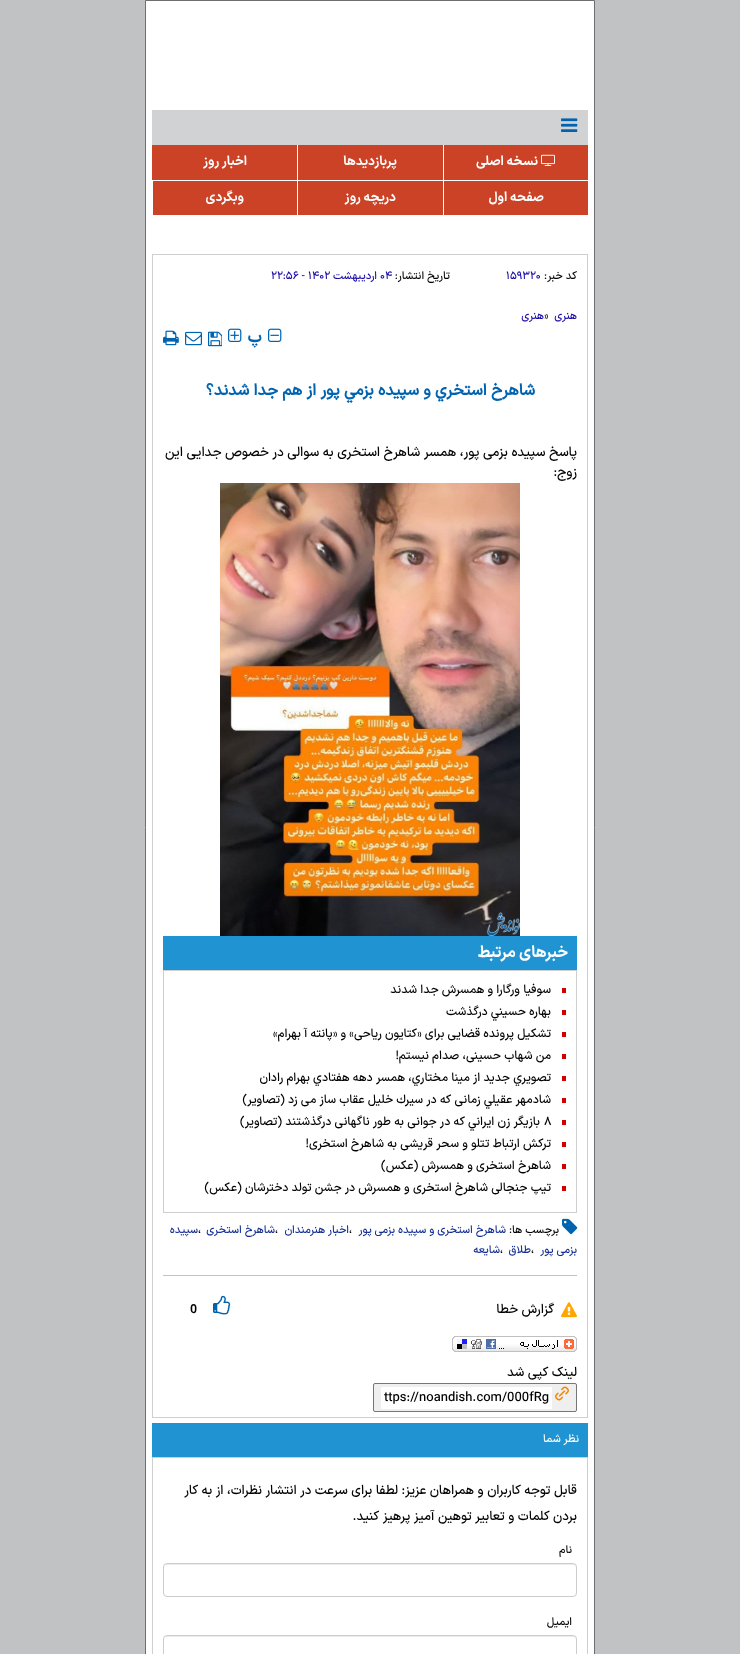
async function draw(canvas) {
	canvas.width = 740;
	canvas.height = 1654;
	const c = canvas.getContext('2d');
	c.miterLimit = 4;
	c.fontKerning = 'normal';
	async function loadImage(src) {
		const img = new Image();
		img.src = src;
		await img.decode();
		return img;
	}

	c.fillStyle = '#c1c2c4';
	c.fillRect(0, 0, 740, 1654);
	c.fillStyle = '#fff';
	c.beginPath();
	c.rect(145.5, 0.5, 449, 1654);
	c.fill();
	c.strokeStyle = '#6d6e70';
	c.stroke();
	c.fillStyle = '#d1d2d4';
	c.fillRect(152, 110, 436, 35);
	c.drawImage(await loadImage('img1.png'), 561, 118, 17, 14);
	c.fillStyle = '#cc4226';
	c.fillRect(152, 145, 436, 35);
	c.fillStyle = '#fff';
	c.fillRect(443, 145, 1, 35);
	c.drawImage(await loadImage('img2.png'), 541, 154, 14, 12);
	c.direction = 'rtl';
	c.font = 'bold 13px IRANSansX';
	c.fillText('نسخه اصلی', 538, 165);
	c.fillRect(297, 145, 1, 35);
	c.fillText('پربازدیدها', 397, 165);
	c.fillText('اخبار روز', 247, 165);
	c.fillStyle = '#cc4226';
	c.fillRect(153, 181, 435, 34);
	c.fillStyle = '#fff';
	c.fillRect(443, 181, 1, 34);
	c.fillText('صفحه اول', 544, 201);
	c.fillRect(297, 181, 1, 34);
	c.fillText('دریچه روز', 396, 201);
	c.fillText('وبگردی', 244, 201);
	c.strokeStyle = '#cfcfcf';
	c.strokeRect(152.5, 254.5, 435, 1163);
	c.font = '500 11px IRANSansX';
	c.fillStyle = '#000';
	c.fillText('کد خبر:', 577, 279);
	c.direction = 'ltr';
	c.fillStyle = '#1809a6';
	c.fillText('۱۵۹۳۲۰', 506, 279);
	c.direction = 'rtl';
	c.fillStyle = '#000';
	c.fillText('تاریخ انتشار:', 450, 279);
	c.direction = 'ltr';
	c.fillStyle = '#1809a6';
	c.fillText('۰۴', 380, 279);
	c.direction = 'rtl';
	c.fillText('ارديبهشت', 377, 279);
	c.direction = 'ltr';
	c.fillText('۲۲:۵۶ - ۱۴۰۲', 271, 279);
	c.direction = 'rtl';
	c.fillText('هنری', 577, 319);
	c.direction = 'ltr';
	c.fillStyle = '#000';
	c.fillText('»', 544, 319);
	c.direction = 'rtl';
	c.fillStyle = '#1809a6';
	c.fillText('هنری', 544, 319);
	c.drawImage(await loadImage('img3.png'), 268, 328, 14, 14);
	c.font = 'bold 17px IRANSansX';
	c.fillStyle = '#0063b0';
	c.fillText('پ', 262, 342);
	c.drawImage(await loadImage('img4.png'), 228, 328, 14, 14);
	c.drawImage(await loadImage('img5.png'), 208, 331, 14, 16);
	c.drawImage(await loadImage('img6.png'), 185, 331, 17, 15);
	c.drawImage(await loadImage('img7.png'), 163, 330, 16, 16);
	c.font = 'bold 16px "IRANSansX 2"';
	c.fillText('شاهرخ استخري و سپیده بزمي پور از هم جدا شدند؟', 535, 395);
	c.font = '500 13.3px IRANSansX';
	c.fillStyle = '#000';
	c.fillText('پاسخ سپیده بزمی پور، همسر شاهرخ استخری به سوالی در خصوص جدایی این', 577, 456);
	c.fillText('زوج:', 577, 476);
	c.drawImage(await loadImage('img8.png'), 220, 483, 300, 453);
	c.fillStyle = '#2094d2';
	c.fillRect(163, 936, 414, 34);
	c.font = 'bold 16px IRANSansX';
	c.fillStyle = '#fff';
	c.fillText('خبرهای مرتبط', 568, 957);
	c.strokeRect(163.5, 970.5, 413, 242);
	c.fillStyle = '#d10000';
	c.fillRect(562, 988, 4, 5);
	c.font = '500 12px IRANSansX';
	c.fillStyle = '#000';
	c.fillText('سوفیا ورگارا و همسرش جدا شدند', 551, 993);
	c.fillStyle = '#d10000';
	c.fillRect(562, 1010, 4, 5);
	c.fillStyle = '#000';
	c.fillText('بهاره حسیني درگذشت', 551, 1015);
	c.fillStyle = '#d10000';
	c.fillRect(562, 1032, 4, 5);
	c.fillStyle = '#000';
	c.fillText('تشکیل پرونده قضایی برای «کتایون ریاحی» و «پانته آ بهرام»', 551, 1037);
	c.fillStyle = '#d10000';
	c.fillRect(562, 1054, 4, 5);
	c.fillStyle = '#000';
	c.fillText('من شهاب حسینی، صدام نیستم!', 551, 1059);
	c.fillStyle = '#d10000';
	c.fillRect(562, 1076, 4, 5);
	c.fillStyle = '#000';
	c.fillText('تصويري جدید از مینا مختاري، همسر دهه هفتادي بهرام رادان', 551, 1081);
	c.fillStyle = '#d10000';
	c.fillRect(562, 1098, 4, 5);
	c.fillStyle = '#000';
	c.fillText('شادمهر عقيلي زمانى كه در سيرك خليل عقاب ساز مى زد (تصاوير)', 551, 1103);
	c.fillStyle = '#d10000';
	c.fillRect(562, 1120, 4, 5);
	c.direction = 'ltr';
	c.fillStyle = '#000';
	c.fillText('٨', 544, 1125);
	c.direction = 'rtl';
	c.fillText('بازیگر زن ایراني که در جوانى به طور ناگهانى درگذشتند (تصاویر)', 540, 1125);
	c.fillStyle = '#d10000';
	c.fillRect(562, 1142, 4, 5);
	c.fillStyle = '#000';
	c.fillText('تركش ارتباط تتلو و سحر قريشى به شاهرخ استخرى!', 551, 1147);
	c.fillStyle = '#d10000';
	c.fillRect(562, 1164, 4, 5);
	c.fillStyle = '#000';
	c.fillText('شاهرخ استخری و همسرش (عکس)', 551, 1169);
	c.fillStyle = '#d10000';
	c.fillRect(562, 1186, 4, 5);
	c.fillStyle = '#000';
	c.fillText('تیپ جنجالی شاهرخ استخری و همسرش در جشن تولد دخترشان (عکس)', 551, 1191);
	c.fillStyle = '#c1c2c4';
	c.fillRect(163, 1275, 414, 1);
	c.drawImage(await loadImage('img9.png'), 562, 1218, 16, 16);
	c.font = '500 11px IRANSansX';
	c.fillStyle = '#000';
	c.fillText('برچسب ها:', 559, 1233);
	c.fillStyle = '#122d92';
	c.fillText('شاهرخ استخری و سپیده بزمی پور', 506, 1233);
	c.direction = 'ltr';
	c.fillStyle = '#000';
	c.fillText('،', 349, 1233);
	c.direction = 'rtl';
	c.fillStyle = '#122d92';
	c.fillText('اخبار هنرمندان', 349, 1233);
	c.direction = 'ltr';
	c.fillStyle = '#000';
	c.fillText('،', 275, 1233);
	c.direction = 'rtl';
	c.fillStyle = '#122d92';
	c.fillText('شاهرخ استخری', 275, 1233);
	c.direction = 'ltr';
	c.fillStyle = '#000';
	c.fillText('،', 198, 1233);
	c.direction = 'rtl';
	c.fillStyle = '#122d92';
	c.fillText('سپیده', 198, 1233);
	c.fillText('بزمی پور', 577, 1253);
	c.direction = 'ltr';
	c.fillStyle = '#000';
	c.fillText('،', 531, 1253);
	c.direction = 'rtl';
	c.fillStyle = '#122d92';
	c.fillText('طلاق', 531, 1253);
	c.direction = 'ltr';
	c.fillStyle = '#000';
	c.fillText('،', 500, 1253);
	c.direction = 'rtl';
	c.fillStyle = '#122d92';
	c.fillText('شایعه', 500, 1253);
	c.drawImage(await loadImage('img10.png'), 561, 1302, 16, 16);
	c.font = '500 13px IRANSansX';
	c.fillStyle = '#000';
	c.fillText('گزارش خطا', 554, 1313);
	c.drawImage(await loadImage('img11.png'), 213, 1295, 18, 20);
	c.direction = 'ltr';
	c.font = 'bold 12px "IRANSansX 2"';
	c.fillText('0', 190, 1313);
	c.drawImage(await loadImage('img12.png'), 452, 1336, 125, 16);
	c.direction = 'rtl';
	c.font = '500 13px IRANSansX';
	c.fillText('لینک کپی شد', 577, 1376);
	c.fillStyle = '#efefef';
	c.beginPath();
	c.roundRect(373.5, 1383.5, 203, 28, 1.5);
	c.fill();
	c.strokeStyle = '#767676';
	c.stroke();
	c.drawImage(await loadImage('img13.png'), 555, 1386, 14, 15);
	c.fillStyle = '#fff';
	c.fillRect(381, 1387, 171, 22);
	c.direction = 'ltr';
	c.fillStyle = '#000';
	c.fillText('ttps://noandish.com/000fRg', 384, 1401);
	c.fillStyle = '#2094d2';
	c.fillRect(152, 1423, 436, 34);
	c.direction = 'rtl';
	c.font = '500 11px IRANSansX';
	c.fillStyle = '#fff';
	c.fillText('نظر شما', 579, 1442);
	c.strokeStyle = '#cfcfcf';
	c.strokeRect(152.5, 1457.5, 435, 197);
	c.font = '500 13px IRANSansX';
	c.fillStyle = '#000';
	c.fillText('قابل توجه کاربران و همراهان عزیز: لطفا برای سرعت در انتشار نظرات، از به کار', 577, 1494);
	c.fillText('بردن کلمات و تعابیر توهین آمیز پرهیز کنید.', 577, 1520);
	c.font = '500 11px IRANSansX';
	c.fillText('نام', 572, 1553);
	c.fillStyle = '#ececec';
	c.beginPath();
	c.moveTo(167, 1565);
	c.lineTo(573, 1565);
	c.bezierCurveTo(575, 1565, 576, 1566, 576, 1568);
	c.bezierCurveTo(576, 1566, 575, 1564, 573, 1564);
	c.lineTo(167, 1564);
	c.bezierCurveTo(165, 1564, 164, 1566, 164, 1568);
	c.bezierCurveTo(164, 1566, 165, 1565, 167, 1565);
	c.closePath();
	c.fill();
	c.beginPath();
	c.roundRect(163.5, 1563.5, 413, 33, 3.5);
	c.strokeStyle = '#ccc';
	c.stroke();
	c.fillStyle = '#000';
	c.fillText('ایمیل', 572, 1625);
	c.fillStyle = '#ececec';
	c.beginPath();
	c.moveTo(167, 1637);
	c.lineTo(573, 1637);
	c.bezierCurveTo(575, 1637, 576, 1638, 576, 1640);
	c.bezierCurveTo(576, 1638, 575, 1636, 573, 1636);
	c.lineTo(167, 1636);
	c.bezierCurveTo(165, 1636, 164, 1638, 164, 1640);
	c.bezierCurveTo(164, 1638, 165, 1637, 167, 1637);
	c.closePath();
	c.fill();
	c.beginPath();
	c.roundRect(163.5, 1635.5, 413, 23, 3.5);
	c.stroke();
}

draw(document.querySelector('canvas'));
